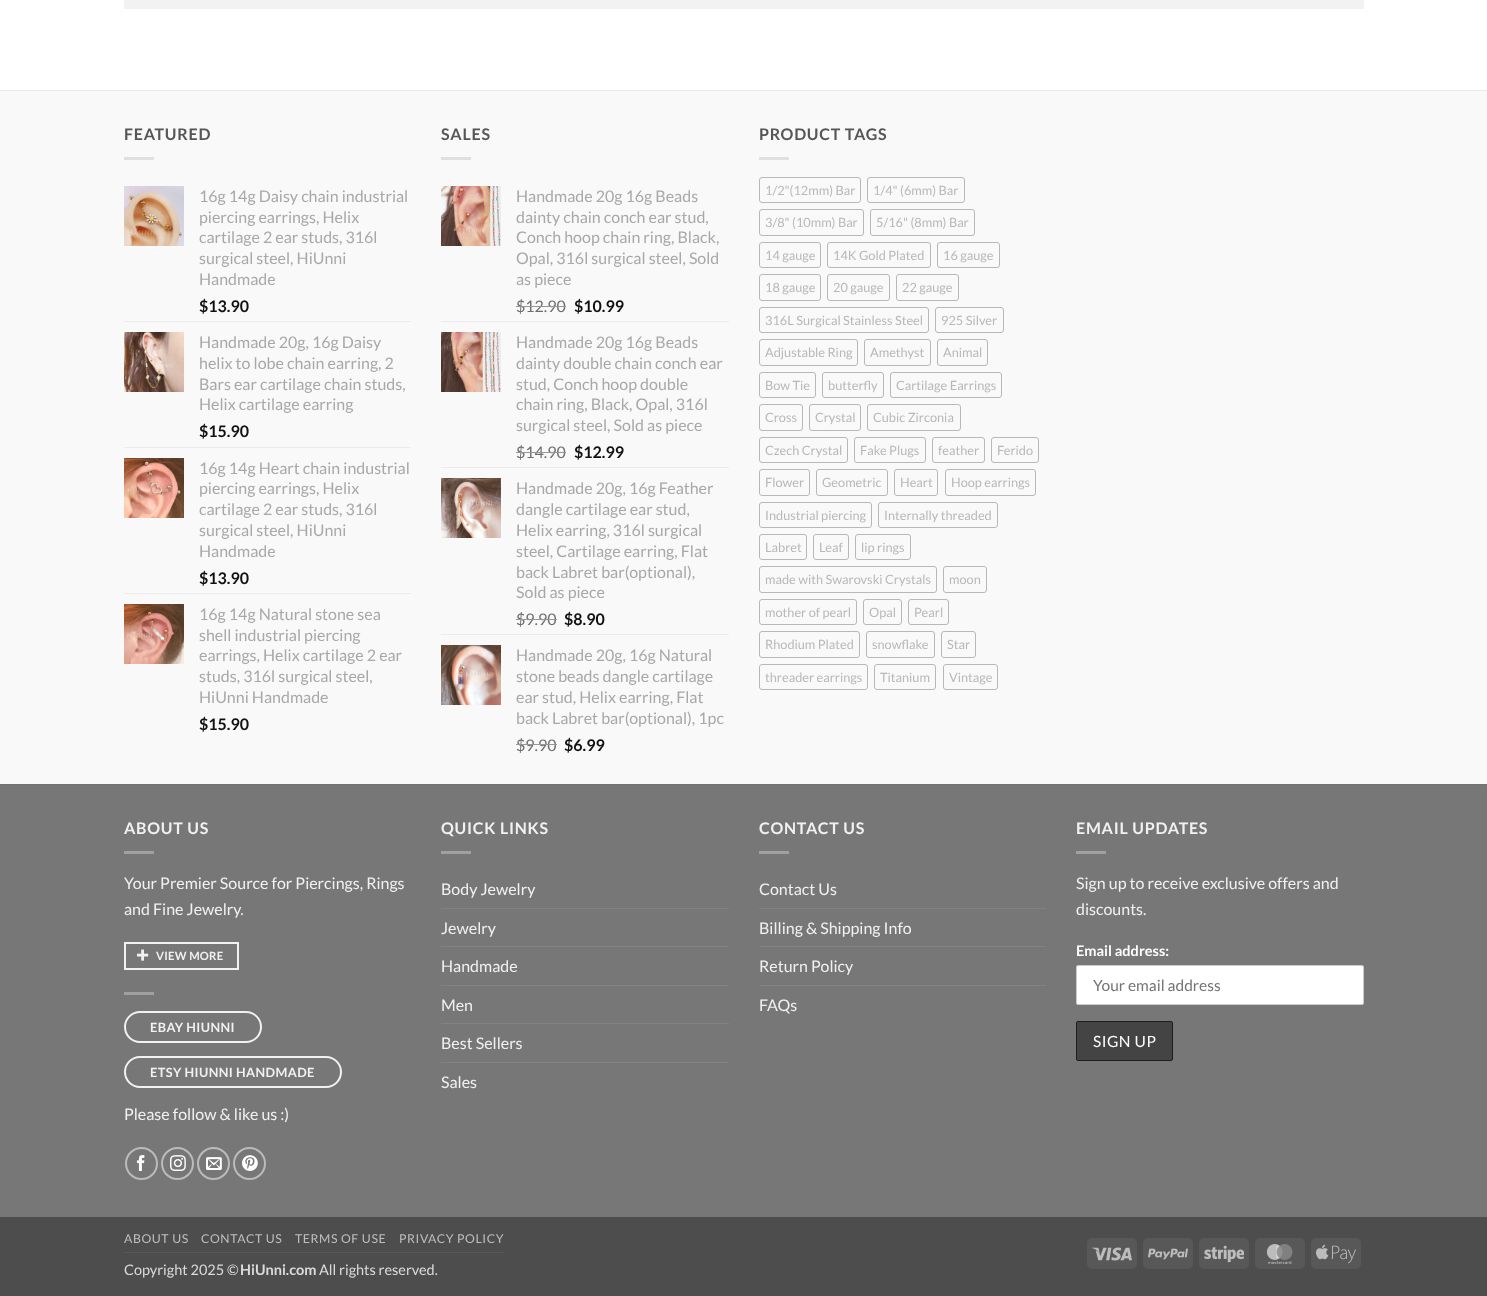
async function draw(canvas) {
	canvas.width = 1487;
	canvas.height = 1296;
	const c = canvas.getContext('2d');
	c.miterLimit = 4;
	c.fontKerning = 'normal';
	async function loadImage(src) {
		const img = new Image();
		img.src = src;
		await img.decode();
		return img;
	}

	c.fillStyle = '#fff';
	c.fillRect(0, 0, 1487, 1296);
	for (const [x, y, w, h, color] of [
		[124, 0, 1240, 9, '#f2f2f2'],
		[0, 91, 1487, 693, '#f9f9f9'],
		[0, 90, 1487, 1, '#ededed'],
	]) {
		c.fillStyle = color;
		c.fillRect(x, y, w, h);
	}
	c.letterSpacing = '0.75px';
	c.font = 'bold 16px Lato';
	c.fillStyle = '#565656';
	c.fillText('FEATURED', 124, 140);
	c.fillStyle = '#e0e0e0';
	c.fillRect(124, 157, 30, 3);
	c.drawImage(await loadImage('img1.png'), 124, 186, 60, 60);
	c.letterSpacing = '0px';
	c.font = '16px Lato';
	c.fillStyle = '#a8a8a8';
	for (const [text, x, y] of [
		['16g 14g Daisy chain industrial', 199, 202],
		['piercing earrings, Helix', 199, 223],
		['cartilage 2 ear studs, 316l', 199, 243],
		['surgical steel, HiUnni', 199, 264],
		['Handmade', 199, 285],
	]) {
		c.fillText(text, x, y);
	}
	c.font = 'bold 16px Lato';
	c.fillStyle = '#111';
	c.fillText('$13.90', 199, 312);
	c.fillStyle = '#ececec';
	c.fillRect(124, 321, 287, 1);
	c.drawImage(await loadImage('img2.png'), 124, 332, 60, 60);
	c.font = '16px Lato';
	c.fillStyle = '#a8a8a8';
	for (const [text, x, y] of [
		['Handmade 20g, 16g Daisy', 199, 348],
		['helix to lobe chain earring, 2', 199, 369],
		['Bars ear cartilage chain studs,', 199, 390],
		['Helix cartilage earring', 199, 410],
	]) {
		c.fillText(text, x, y);
	}
	c.font = 'bold 16px Lato';
	c.fillStyle = '#111';
	c.fillText('$15.90', 199, 437);
	c.fillStyle = '#ececec';
	c.fillRect(124, 447, 287, 1);
	c.drawImage(await loadImage('img3.png'), 124, 458, 60, 60);
	c.font = '16px Lato';
	c.fillStyle = '#a8a8a8';
	for (const [text, x, y] of [
		['16g 14g Heart chain industrial', 199, 474],
		['piercing earrings, Helix', 199, 494],
		['cartilage 2 ear studs, 316l', 199, 515],
		['surgical steel, HiUnni', 199, 536],
		['Handmade', 199, 557],
	]) {
		c.fillText(text, x, y);
	}
	c.font = 'bold 16px Lato';
	c.fillStyle = '#111';
	c.fillText('$13.90', 199, 584);
	c.fillStyle = '#ececec';
	c.fillRect(124, 593, 287, 1);
	c.drawImage(await loadImage('img4.png'), 124, 604, 60, 60);
	c.font = '16px Lato';
	c.fillStyle = '#a8a8a8';
	for (const [text, x, y] of [
		['16g 14g Natural stone sea', 199, 620],
		['shell industrial piercing', 199, 641],
		['earrings, Helix cartilage 2 ear', 199, 661],
		['studs, 316l surgical steel,', 199, 682],
		['HiUnni Handmade', 199, 703],
	]) {
		c.fillText(text, x, y);
	}
	c.font = 'bold 16px Lato';
	c.fillStyle = '#111';
	c.fillText('$15.90', 199, 730);
	c.letterSpacing = '0.75px';
	c.fillStyle = '#565656';
	c.fillText('SALES', 441, 140);
	c.fillStyle = '#e0e0e0';
	c.fillRect(441, 157, 30, 3);
	c.drawImage(await loadImage('img5.png'), 441, 186, 60, 60);
	c.letterSpacing = '0px';
	c.font = '16px Lato';
	c.fillStyle = '#a8a8a8';
	for (const [text, x, y] of [
		['Handmade 20g 16g Beads', 516, 202],
		['dainty chain conch ear stud,', 516, 223],
		['Conch hoop chain ring, Black,', 516, 243],
		['Opal, 316l surgical steel, Sold', 516, 264],
		['as piece', 516, 285],
	]) {
		c.fillText(text, x, y);
	}
	c.fillStyle = '#6e6e6e';
	c.fillText('$12.90', 516, 312);
	c.fillStyle = '#979797';
	c.fillRect(516, 306, 50, 1);
	c.font = 'bold 16px Lato';
	c.fillStyle = '#111';
	c.fillText('$10.99', 574, 312);
	c.fillStyle = '#ececec';
	c.fillRect(441, 321, 288, 1);
	c.drawImage(await loadImage('img6.png'), 441, 332, 60, 60);
	c.font = '16px Lato';
	c.fillStyle = '#a8a8a8';
	for (const [text, x, y] of [
		['Handmade 20g 16g Beads', 516, 348],
		['dainty double chain conch ear', 516, 369],
		['stud, Conch hoop double', 516, 390],
		['chain ring, Black, Opal, 316l', 516, 410],
		['surgical steel, Sold as piece', 516, 431],
	]) {
		c.fillText(text, x, y);
	}
	c.fillStyle = '#6e6e6e';
	c.fillText('$14.90', 516, 458);
	c.fillStyle = '#979797';
	c.fillRect(516, 452, 50, 1);
	c.font = 'bold 16px Lato';
	c.fillStyle = '#111';
	c.fillText('$12.99', 574, 458);
	c.fillStyle = '#ececec';
	c.fillRect(441, 467, 288, 1);
	c.drawImage(await loadImage('img7.png'), 441, 478, 60, 60);
	c.font = '16px Lato';
	c.fillStyle = '#a8a8a8';
	for (const [text, x, y] of [
		['Handmade 20g, 16g Feather', 516, 494],
		['dangle cartilage ear stud,', 516, 515],
		['Helix earring, 316l surgical', 516, 536],
		['steel, Cartilage earring, Flat', 516, 557],
		['back Labret bar(optional),', 516, 578],
		['Sold as piece', 516, 598],
	]) {
		c.fillText(text, x, y);
	}
	c.fillStyle = '#6e6e6e';
	c.fillText('$9.90', 516, 625);
	c.fillStyle = '#979797';
	c.fillRect(516, 619, 41, 1);
	c.font = 'bold 16px Lato';
	c.fillStyle = '#111';
	c.fillText('$8.90', 564, 625);
	c.fillStyle = '#ececec';
	c.fillRect(441, 634, 288, 1);
	c.drawImage(await loadImage('img8.png'), 441, 645, 60, 60);
	c.font = '16px Lato';
	c.fillStyle = '#a8a8a8';
	for (const [text, x, y] of [
		['Handmade 20g, 16g Natural', 516, 661],
		['stone beads dangle cartilage', 516, 682],
		['ear stud, Helix earring, Flat', 516, 703],
		['back Labret bar(optional), 1pc', 516, 724],
	]) {
		c.fillText(text, x, y);
	}
	c.fillStyle = '#6e6e6e';
	c.fillText('$9.90', 516, 751);
	c.fillStyle = '#979797';
	c.fillRect(516, 744, 41, 1);
	c.font = 'bold 16px Lato';
	c.fillStyle = '#111';
	c.fillText('$6.99', 564, 751);
	c.letterSpacing = '0.75px';
	c.fillStyle = '#565656';
	c.fillText('PRODUCT TAGS', 759, 140);
	c.fillStyle = '#e0e0e0';
	c.fillRect(759, 157, 30, 3);
	c.beginPath();
	c.roundRect(759.5, 177.5, 101, 25, 2.5);
	c.strokeStyle = '#b8b8b8';
	c.stroke();
	c.letterSpacing = '0px';
	c.font = '12.75px Lato';
	c.fillStyle = '#b8b8b8';
	c.fillText('1/2"(12mm) Bar', 765, 195);
	c.beginPath();
	c.roundRect(867.5, 177.5, 97, 25, 2.5);
	c.stroke();
	c.fillText('1/4" (6mm) Bar', 873, 195);
	c.beginPath();
	c.roundRect(759.5, 209.5, 104, 26, 2.5);
	c.stroke();
	c.fillText('3/8" (10mm) Bar', 765, 227);
	c.beginPath();
	c.roundRect(870.5, 209.5, 104, 26, 2.5);
	c.stroke();
	c.fillText('5/16" (8mm) Bar', 876, 227);
	c.beginPath();
	c.roundRect(759.5, 242.5, 61, 25, 2.5);
	c.stroke();
	c.fillText('14 gauge', 765, 260);
	c.beginPath();
	c.roundRect(827.5, 242.5, 103, 25, 2.5);
	c.stroke();
	c.fillText('14K Gold Plated', 833, 260);
	c.beginPath();
	c.roundRect(937.5, 242.5, 62, 25, 2.5);
	c.stroke();
	c.fillText('16 gauge', 943, 260);
	c.beginPath();
	c.roundRect(759.5, 274.5, 61, 26, 2.5);
	c.stroke();
	c.fillText('18 gauge', 765, 292);
	c.beginPath();
	c.roundRect(827.5, 274.5, 62, 26, 2.5);
	c.stroke();
	c.fillText('20 gauge', 833, 292);
	c.beginPath();
	c.roundRect(896.5, 274.5, 62, 26, 2.5);
	c.stroke();
	c.fillText('22 gauge', 902, 292);
	c.beginPath();
	c.roundRect(759.5, 307.5, 169, 25, 2.5);
	c.stroke();
	c.fillText('316L Surgical Stainless Steel', 765, 325);
	c.beginPath();
	c.roundRect(935.5, 307.5, 68, 25, 2.5);
	c.stroke();
	c.fillText('925 Silver', 941, 325);
	c.beginPath();
	c.roundRect(759.5, 339.5, 98, 26, 2.5);
	c.stroke();
	c.fillText('Adjustable Ring', 765, 357);
	c.beginPath();
	c.roundRect(864.5, 339.5, 66, 26, 2.5);
	c.stroke();
	c.fillText('Amethyst', 870, 357);
	c.beginPath();
	c.roundRect(937.5, 339.5, 50, 26, 2.5);
	c.stroke();
	c.fillText('Animal', 943, 357);
	c.beginPath();
	c.roundRect(759.5, 372.5, 56, 25, 2.5);
	c.stroke();
	c.fillText('Bow Tie', 765, 390);
	c.beginPath();
	c.roundRect(822.5, 372.5, 61, 25, 2.5);
	c.stroke();
	c.fillText('butterfly', 828, 390);
	c.beginPath();
	c.roundRect(890.5, 372.5, 111, 25, 2.5);
	c.stroke();
	c.fillText('Cartilage Earrings', 896, 390);
	c.beginPath();
	c.roundRect(759.5, 404.5, 43, 26, 2.5);
	c.stroke();
	c.fillText('Cross', 765, 422);
	c.beginPath();
	c.roundRect(809.5, 404.5, 51, 26, 2.5);
	c.stroke();
	c.fillText('Crystal', 815, 422);
	c.beginPath();
	c.roundRect(867.5, 404.5, 93, 26, 2.5);
	c.stroke();
	c.fillText('Cubic Zirconia', 873, 422);
	c.beginPath();
	c.roundRect(759.5, 437.5, 88, 25, 2.5);
	c.stroke();
	c.fillText('Czech Crystal', 765, 455);
	c.beginPath();
	c.roundRect(854.5, 437.5, 71, 25, 2.5);
	c.stroke();
	c.fillText('Fake Plugs', 860, 455);
	c.beginPath();
	c.roundRect(932.5, 437.5, 52, 25, 2.5);
	c.stroke();
	c.fillText('feather', 938, 455);
	c.beginPath();
	c.roundRect(991.5, 437.5, 47, 25, 2.5);
	c.stroke();
	c.fillText('Ferido', 997, 455);
	c.beginPath();
	c.roundRect(759.5, 469.5, 50, 26, 2.5);
	c.stroke();
	c.fillText('Flower', 765, 487);
	c.beginPath();
	c.roundRect(816.5, 469.5, 71, 26, 2.5);
	c.stroke();
	c.fillText('Geometric', 822, 487);
	c.beginPath();
	c.roundRect(894.5, 469.5, 43, 26, 2.5);
	c.stroke();
	c.fillText('Heart', 900, 487);
	c.beginPath();
	c.roundRect(945.5, 469.5, 90, 26, 2.5);
	c.stroke();
	c.fillText('Hoop earrings', 951, 487);
	c.beginPath();
	c.roundRect(759.5, 502.5, 112, 25, 2.5);
	c.stroke();
	c.fillText('Industrial piercing', 765, 520);
	c.beginPath();
	c.roundRect(878.5, 502.5, 119, 25, 2.5);
	c.stroke();
	c.fillText('Internally threaded', 884, 520);
	c.beginPath();
	c.roundRect(759.5, 534.5, 47, 25, 2.5);
	c.stroke();
	c.fillText('Labret', 765, 552);
	c.beginPath();
	c.roundRect(813.5, 534.5, 35, 25, 2.5);
	c.stroke();
	c.fillText('Leaf', 819, 552);
	c.beginPath();
	c.roundRect(855.5, 534.5, 55, 25, 2.5);
	c.stroke();
	c.fillText('lip rings', 861, 552);
	c.beginPath();
	c.roundRect(759.5, 566.5, 177, 26, 2.5);
	c.stroke();
	c.fillText('made with Swarovski Crystals', 765, 584);
	c.beginPath();
	c.roundRect(943.5, 566.5, 43, 26, 2.5);
	c.stroke();
	c.fillText('moon', 949, 584);
	c.beginPath();
	c.roundRect(759.5, 599.5, 97, 25, 2.5);
	c.stroke();
	c.fillText('mother of pearl', 765, 617);
	c.beginPath();
	c.roundRect(863.5, 599.5, 38, 25, 2.5);
	c.stroke();
	c.fillText('Opal', 869, 617);
	c.beginPath();
	c.roundRect(908.5, 599.5, 40, 25, 2.5);
	c.stroke();
	c.fillText('Pearl', 914, 617);
	c.beginPath();
	c.roundRect(759.5, 631.5, 100, 26, 2.5);
	c.stroke();
	c.fillText('Rhodium Plated', 765, 649);
	c.beginPath();
	c.roundRect(866.5, 631.5, 68, 26, 2.5);
	c.stroke();
	c.fillText('snowflake', 872, 649);
	c.beginPath();
	c.roundRect(941.5, 631.5, 34, 26, 2.5);
	c.stroke();
	c.fillText('Star', 947, 649);
	c.beginPath();
	c.roundRect(759.5, 664.5, 108, 25, 2.5);
	c.stroke();
	c.fillText('threader earrings', 765, 682);
	c.beginPath();
	c.roundRect(874.5, 664.5, 61, 25, 2.5);
	c.stroke();
	c.fillText('Titanium', 880, 682);
	c.beginPath();
	c.roundRect(943.5, 664.5, 54, 25, 2.5);
	c.stroke();
	c.fillText('Vintage', 949, 682);
	c.fillStyle = '#777';
	c.fillRect(0, 785, 1487, 432);
	c.fillStyle = '#717171';
	c.fillRect(0, 784, 1487, 1);
	c.letterSpacing = '0.75px';
	c.font = 'bold 16px Lato';
	c.fillStyle = '#f1f1f1';
	c.fillText('ABOUT US', 124, 834);
	c.fillStyle = '#a0a0a0';
	c.fillRect(124, 851, 30, 3);
	c.letterSpacing = '0px';
	c.font = '16px Lato';
	c.fillStyle = '#f1f1f1';
	c.fillText('Your Premier Source for Piercings, Rings', 124, 889);
	c.fillText('and Fine Jewelry.', 124, 915);
	c.strokeStyle = '#f1f1f1';
	c.lineWidth = 2;
	c.strokeRect(125, 943, 113, 26);
	c.drawImage(await loadImage('img9.png'), 137, 949, 12, 12);
	c.letterSpacing = '0.25px';
	c.font = 'bold 11.25px Lato';
	c.fillText('VIEW MORE', 156, 960);
	c.fillStyle = '#a0a0a0';
	c.fillRect(124, 992, 30, 3);
	c.beginPath();
	c.roundRect(125, 1012, 136, 30, 15);
	c.stroke();
	c.letterSpacing = '0.4px';
	c.font = 'bold 12.75px Lato';
	c.fillStyle = '#f1f1f1';
	c.fillText('EBAY HIUNNI', 150, 1032);
	c.beginPath();
	c.roundRect(125, 1057, 216, 30, 15);
	c.stroke();
	c.fillText('ETSY HIUNNI HANDMADE', 150, 1077);
	c.letterSpacing = '0px';
	c.font = '16px Lato';
	c.fillText('Please follow & like us :)', 124, 1120);
	c.beginPath();
	c.arc(141.5, 1163.5, 15.5, 0, 2 * Math.PI);
	c.strokeStyle = '#bbb';
	c.stroke();
	c.drawImage(await loadImage('img10.png'), 136, 1155, 9, 16);
	c.beginPath();
	c.arc(177.5, 1163.5, 15.5, 0, 2 * Math.PI);
	c.stroke();
	c.drawImage(await loadImage('img11.png'), 170, 1155, 16, 16);
	c.beginPath();
	c.arc(213.5, 1163.5, 15.5, 0, 2 * Math.PI);
	c.stroke();
	c.drawImage(await loadImage('img12.png'), 206, 1157, 16, 13);
	c.beginPath();
	c.arc(249.5, 1163.5, 15.5, 0, 2 * Math.PI);
	c.stroke();
	c.drawImage(await loadImage('img13.png'), 242, 1155, 16, 16);
	c.letterSpacing = '0.75px';
	c.font = 'bold 16px Lato';
	c.fillText('QUICK LINKS', 441, 834);
	c.fillStyle = '#a0a0a0';
	c.fillRect(441, 851, 30, 3);
	c.letterSpacing = '0px';
	c.font = '16px Lato';
	c.fillStyle = '#f1f1f1';
	c.fillText('Body Jewelry', 441, 895);
	c.fillStyle = '#828282';
	c.fillRect(441, 908, 288, 1);
	c.fillStyle = '#f1f1f1';
	c.fillText('Jewelry', 441, 934);
	c.fillStyle = '#828282';
	c.fillRect(441, 946, 288, 1);
	c.fillStyle = '#f1f1f1';
	c.fillText('Handmade', 441, 972);
	c.fillStyle = '#828282';
	c.fillRect(441, 985, 288, 1);
	c.fillStyle = '#f1f1f1';
	c.fillText('Men', 441, 1011);
	c.fillStyle = '#828282';
	c.fillRect(441, 1023, 288, 1);
	c.fillStyle = '#f1f1f1';
	c.fillText('Best Sellers', 441, 1049);
	c.fillStyle = '#828282';
	c.fillRect(441, 1062, 288, 1);
	c.fillStyle = '#f1f1f1';
	c.fillText('Sales', 441, 1088);
	c.letterSpacing = '0.75px';
	c.font = 'bold 16px Lato';
	c.fillText('CONTACT US', 759, 834);
	c.fillStyle = '#a0a0a0';
	c.fillRect(759, 851, 30, 3);
	c.letterSpacing = '0px';
	c.font = '16px Lato';
	c.fillStyle = '#f1f1f1';
	c.fillText('Contact Us', 759, 895);
	c.fillStyle = '#828282';
	c.fillRect(759, 908, 287, 1);
	c.fillStyle = '#f1f1f1';
	c.fillText('Billing & Shipping Info', 759, 934);
	c.fillStyle = '#828282';
	c.fillRect(759, 946, 287, 1);
	c.fillStyle = '#f1f1f1';
	c.fillText('Return Policy', 759, 972);
	c.fillStyle = '#828282';
	c.fillRect(759, 985, 287, 1);
	c.fillStyle = '#f1f1f1';
	c.fillText('FAQs', 759, 1011);
	c.letterSpacing = '0.75px';
	c.font = 'bold 16px Lato';
	c.fillText('EMAIL UPDATES', 1076, 834);
	c.fillStyle = '#a0a0a0';
	c.fillRect(1076, 851, 30, 3);
	c.letterSpacing = '0px';
	c.font = '16px Lato';
	c.fillStyle = '#f1f1f1';
	c.fillText('Sign up to receive exclusive offers and', 1076, 889);
	c.fillText('discounts.', 1076, 915);
	c.font = 'bold 14.5px Lato';
	c.fillStyle = '#fff';
	c.fillText('Email address:', 1076, 956);
	c.beginPath();
	c.roundRect(1076.5, 965.5, 287, 39, 1.5);
	c.fill();
	c.strokeStyle = '#ccc';
	c.lineWidth = 1;
	c.stroke();
	c.font = '15.5px Lato';
	c.fillStyle = '#757575';
	c.fillText('Your email address', 1093, 991);
	c.fillStyle = '#444';
	c.beginPath();
	c.roundRect(1076.5, 1021.5, 96, 39, 1.5);
	c.fill();
	c.strokeStyle = '#1e1e1e';
	c.stroke();
	c.letterSpacing = '0.5px';
	c.fillStyle = '#fff';
	c.fillText('SIGN UP', 1093, 1047);
	c.fillStyle = '#4d4d4d';
	c.fillRect(0, 1217, 1487, 79);
	c.fillStyle = '#585858';
	c.fillRect(124, 1252, 380, 1);
	c.letterSpacing = '0.6px';
	c.font = '12.25px Lato';
	c.fillStyle = '#bfbfbf';
	for (const [text, x, y] of [
		['ABOUT US', 124, 1243],
		['CONTACT US', 201, 1243],
		['TERMS OF USE', 295, 1243],
		['PRIVACY POLICY', 399, 1243],
	]) {
		c.fillText(text, x, y);
	}
	c.letterSpacing = '0px';
	c.font = '14.5px Lato';
	c.fillStyle = '#dbdbdb';
	c.fillText('Copyright 2025 ©', 124, 1275);
	c.font = 'bold 14.5px Lato';
	c.fillText('HiUnni.com', 240, 1275);
	c.font = '14.5px Lato';
	c.fillText('All rights reserved.', 319, 1275);
	c.fillStyle = '#585858';
	c.beginPath();
	c.roundRect(1087, 1238, 50, 31, 5);
	c.fill();
	c.drawImage(await loadImage('img14.png'), 1092, 1247, 40, 14);
	c.beginPath();
	c.roundRect(1143, 1238, 50, 31, 5);
	c.fill();
	c.drawImage(await loadImage('img15.png'), 1148, 1248, 40, 12);
	c.beginPath();
	c.roundRect(1199, 1238, 50, 31, 5);
	c.fill();
	c.drawImage(await loadImage('img16.png'), 1204, 1245, 40, 18);
	c.beginPath();
	c.roundRect(1255, 1238, 50, 31, 5);
	c.fill();
	c.drawImage(await loadImage('img17.png'), 1266, 1244, 27, 20);
	c.beginPath();
	c.roundRect(1311, 1238, 50, 31, 5);
	c.fill();
	c.drawImage(await loadImage('img18.png'), 1316, 1244, 40, 20);
}

draw(document.querySelector('canvas'));
